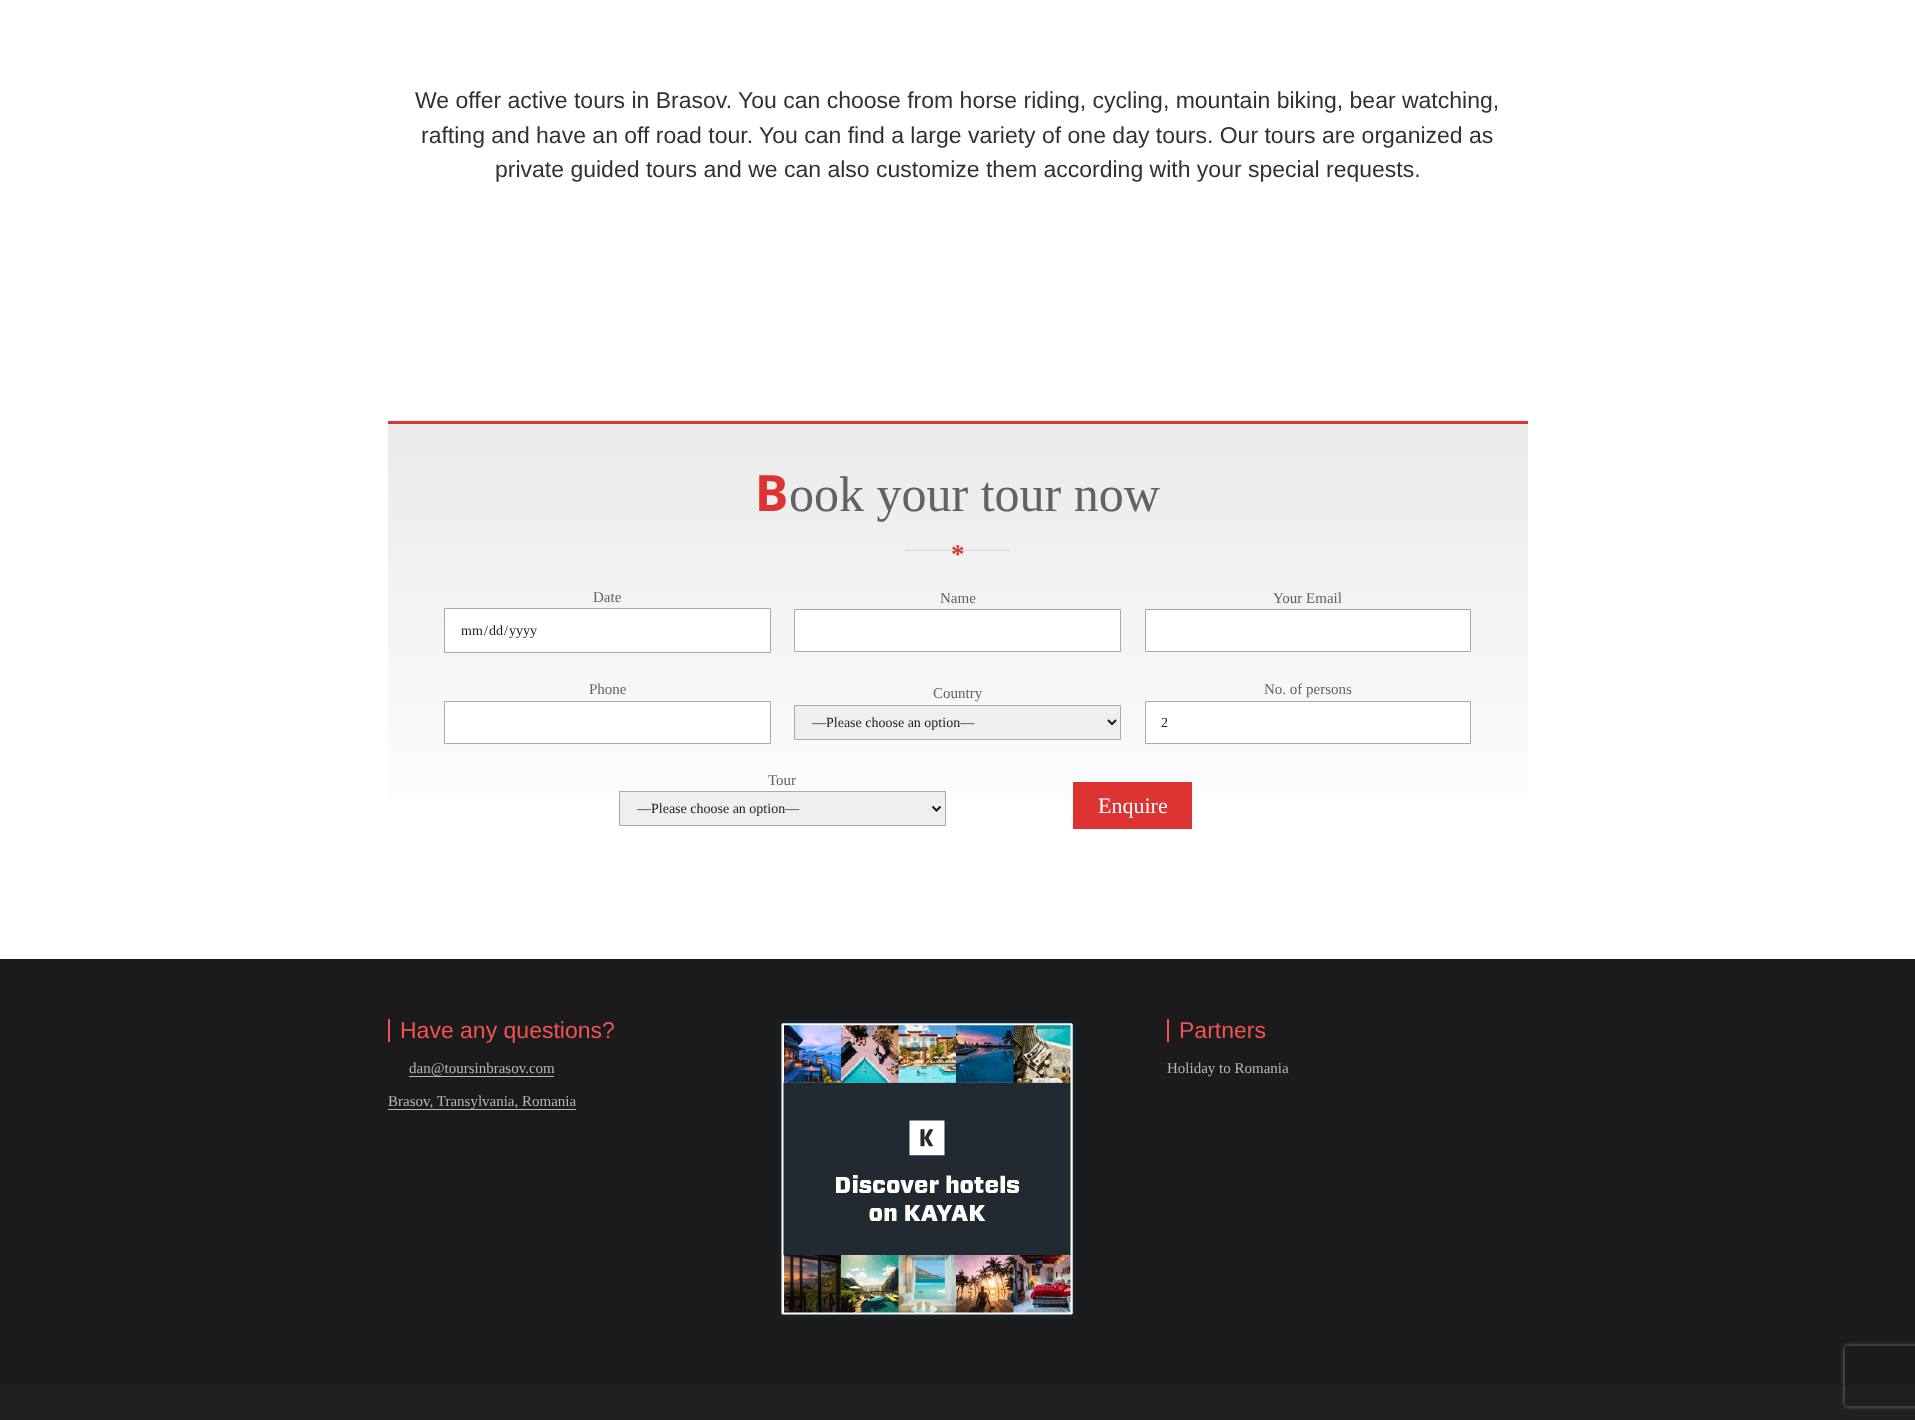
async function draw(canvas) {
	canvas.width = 1915;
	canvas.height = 1420;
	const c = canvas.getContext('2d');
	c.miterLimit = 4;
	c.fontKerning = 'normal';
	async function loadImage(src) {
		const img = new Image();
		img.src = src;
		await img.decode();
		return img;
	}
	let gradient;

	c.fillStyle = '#fff';
	c.fillRect(0, 0, 1915, 1420);
	c.font = '23px Liberation Sans';
	c.fillStyle = '#313131';
	for (const [text, x, y] of [
		['We offer active tours in Brasov. You can choose from horse riding, cycling, mountain biking, bear watching,', 415, 108],
		['rafting and have an off road tour. You can find a large variety of one day tours. Our tours are organized as', 421, 143],
		['private guided tours and we can also customize them according with your special requests.', 495, 177],
	]) {
		c.fillText(text, x, y);
	}
	gradient = c.createLinearGradient(958, 424, 958, 849);
	gradient.addColorStop(0, '#eaeaea');
	gradient.addColorStop(1, '#fff');
	c.fillStyle = gradient;
	c.fillRect(388, 424, 1140, 374);
	c.fillStyle = '#d33';
	c.fillRect(388, 421, 1140, 3);
	c.font = 'bold 50px Noto Sans';
	c.fillText('B', 755, 511);
	c.font = '50px Liberation Serif';
	c.fillStyle = '#626262';
	c.fillText('ook your tour now', 789, 511);
	c.fillStyle = '#ddd';
	c.fillRect(905, 550, 105, 1);
	c.font = 'bold 27px Liberation Serif';
	c.fillStyle = '#d33';
	c.fillText('*', 951, 563);
	c.font = '15px Liberation Serif';
	c.fillStyle = '#626262';
	c.fillText('Date', 593, 602);
	c.fillStyle = '#fff';
	c.beginPath();
	c.rect(444.5, 608.5, 326, 44);
	c.fill();
	c.strokeStyle = '#aaa';
	c.stroke();
	c.font = '14px Liberation Serif';
	c.fillStyle = '#1d1d1d';
	for (const [text, x, y] of [
		['mm', 461, 635],
		['/', 484, 635],
		['dd', 489, 635],
		['/', 504, 635],
		['yyyy', 509, 635],
	]) {
		c.fillText(text, x, y);
	}
	c.font = '15px Liberation Serif';
	c.fillStyle = '#626262';
	c.fillText('Name', 940, 603);
	c.fillStyle = '#fff';
	c.beginPath();
	c.rect(794.5, 609.5, 326, 42);
	c.fill();
	c.stroke();
	c.fillStyle = '#626262';
	c.fillText('Your Email', 1273, 603);
	c.fillStyle = '#fff';
	c.beginPath();
	c.rect(1145.5, 609.5, 325, 42);
	c.fill();
	c.stroke();
	c.fillStyle = '#626262';
	c.fillText('Phone', 589, 694);
	c.fillStyle = '#fff';
	c.beginPath();
	c.rect(444.5, 701.5, 326, 42);
	c.fill();
	c.stroke();
	c.fillStyle = '#626262';
	c.fillText('Country', 933, 698);
	c.fillStyle = '#efefef';
	c.beginPath();
	c.rect(794.5, 705.5, 326, 34);
	c.fill();
	c.stroke();
	c.beginPath();
	c.moveTo(1108, 720);
	c.lineTo(1112, 724);
	c.lineTo(1116, 720);
	c.strokeStyle = '#1d1d1d';
	c.lineWidth = 2;
	c.stroke();
	c.font = '14px Liberation Serif';
	c.fillStyle = '#1d1d1d';
	c.fillText('—Please choose an option—', 812, 727);
	c.font = '15px Liberation Serif';
	c.fillStyle = '#626262';
	c.fillText('No. of persons', 1264, 694);
	c.fillStyle = '#fff';
	c.beginPath();
	c.rect(1145.5, 701.5, 325, 42);
	c.fill();
	c.strokeStyle = '#aaa';
	c.lineWidth = 1;
	c.stroke();
	c.font = '14px Liberation Serif';
	c.fillStyle = '#1d1d1d';
	c.fillText('2', 1161, 727);
	c.font = '15px Liberation Serif';
	c.fillStyle = '#626262';
	c.fillText('Tour', 768, 785);
	c.fillStyle = '#efefef';
	c.beginPath();
	c.rect(619.5, 791.5, 326, 34);
	c.fill();
	c.stroke();
	c.beginPath();
	c.moveTo(932.5, 806.5);
	c.lineTo(936.5, 810.5);
	c.lineTo(940.5, 806.5);
	c.strokeStyle = '#1d1d1d';
	c.lineWidth = 2;
	c.stroke();
	c.font = '14px Liberation Serif';
	c.fillStyle = '#1d1d1d';
	c.fillText('—Please choose an option—', 637, 813);
	c.fillStyle = '#d33';
	c.fillRect(1073, 782, 119, 47);
	c.font = '22px Liberation Serif';
	c.fillStyle = '#fff';
	c.fillText('Enquire', 1098, 813);
	c.fillStyle = '#1b1b1b';
	c.fillRect(0, 959, 1915, 427);
	c.fillStyle = '#f25252';
	c.fillRect(388, 1019, 2, 23);
	c.font = '23px Liberation Sans';
	c.fillText('Have any questions?', 400, 1038);
	c.font = '15px Liberation Serif';
	c.fillStyle = '#b7b7b7';
	c.fillText('dan@toursinbrasov.com', 409, 1073);
	c.fillRect(409, 1076, 145, 1);
	c.fillRect(388, 1109, 188, 1);
	c.fillText('Brasov, Transylvania, Romania', 388, 1106);
	c.drawImage(await loadImage('img1.png'), 777, 1019, 300, 300);
	c.fillStyle = '#f25252';
	c.fillRect(1167, 1019, 2, 23);
	c.font = '23px Liberation Sans';
	c.fillText('Partners', 1179, 1038);
	c.font = '15px Liberation Serif';
	c.fillStyle = '#b7b7b7';
	c.fillText('Holiday to Romania', 1167, 1073);
	c.fillStyle = '#1f1f1f';
	c.fillRect(0, 1386, 1915, 34);
	c.save();
	c.beginPath();
	c.moveTo(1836, 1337);
	c.lineTo(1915, 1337);
	c.lineTo(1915, 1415);
	c.lineTo(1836, 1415);
	c.closePath();
	c.moveTo(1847, 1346);
	c.lineTo(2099, 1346);
	c.bezierCurveTo(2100, 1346, 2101, 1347, 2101, 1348);
	c.lineTo(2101, 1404);
	c.bezierCurveTo(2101, 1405, 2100, 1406, 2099, 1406);
	c.lineTo(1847, 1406);
	c.bezierCurveTo(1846, 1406, 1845, 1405, 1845, 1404);
	c.lineTo(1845, 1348);
	c.bezierCurveTo(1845, 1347, 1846, 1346, 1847, 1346);
	c.closePath();
	c.clip('evenodd');
	c.fillStyle = '#808080';
	c.filter = 'blur(2.5px)';
	c.beginPath();
	c.roundRect(1845, 1346, 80, 60, 2);
	c.fill();
	c.filter = 'none';
	c.restore();
}

draw(document.querySelector('canvas'));
